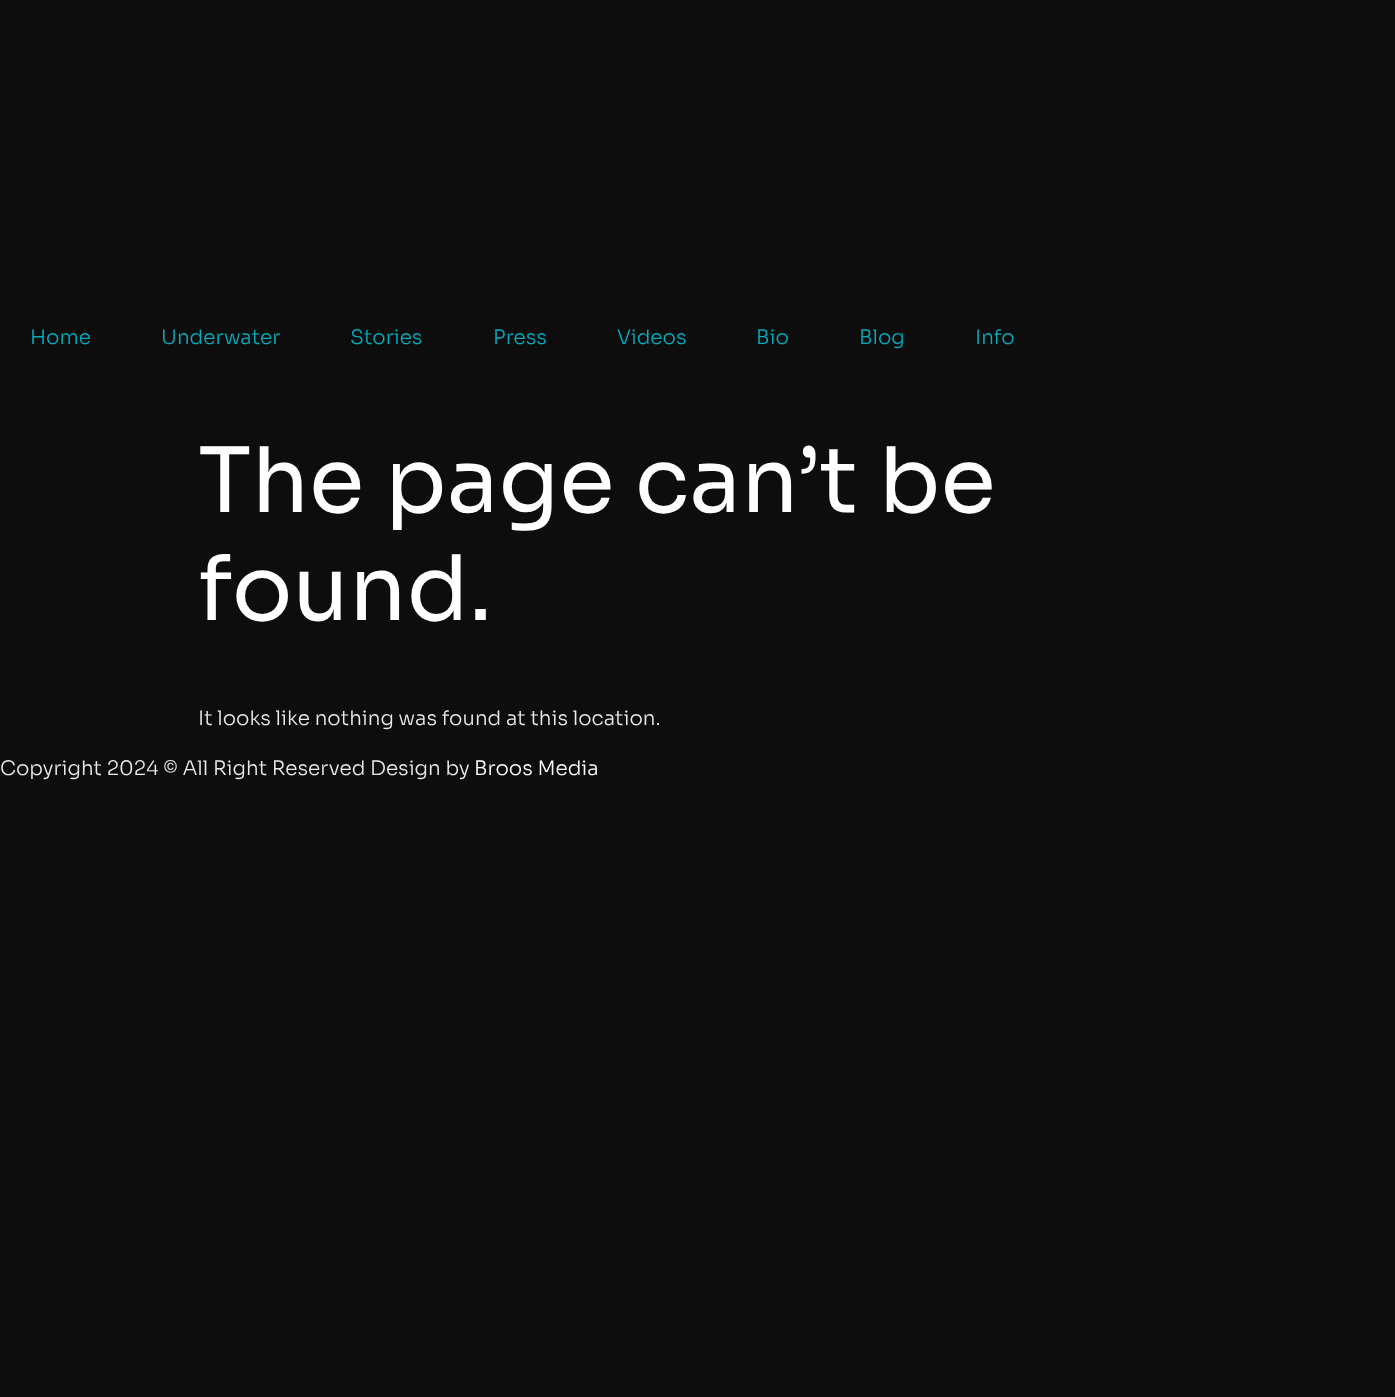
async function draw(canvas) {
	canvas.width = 1395;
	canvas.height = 1397;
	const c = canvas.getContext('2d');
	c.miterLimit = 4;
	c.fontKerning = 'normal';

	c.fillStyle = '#0d0d0d';
	c.fillRect(0, 0, 1395, 1397);
	c.font = '300 20px Sora';
	c.fillStyle = '#04adbf';
	for (const [text, x, y] of [
		['Home', 30, 344],
		['Underwater', 161, 344],
		['Stories', 350, 344],
		['Press', 493, 344],
		['Videos', 617, 344],
		['Bio', 756, 344],
		['Blog', 859, 344],
		['Info', 975, 344],
	]) {
		c.fillText(text, x, y);
	}
	c.font = '90px Sora';
	c.fillStyle = '#fff';
	c.fillText('The page can’t be', 198, 512);
	c.fillText('found.', 198, 620);
	c.font = '300 20px Sora';
	c.fillStyle = '#eaeaea';
	c.fillText('It looks like nothing was found at this location.', 198, 725);
	c.fillText('Copyright 2024 © All Right Reserved Design by', 0, 775);
	c.fillStyle = '#fff';
	c.fillText('Broos Media', 474, 775);
}

draw(document.querySelector('canvas'));
